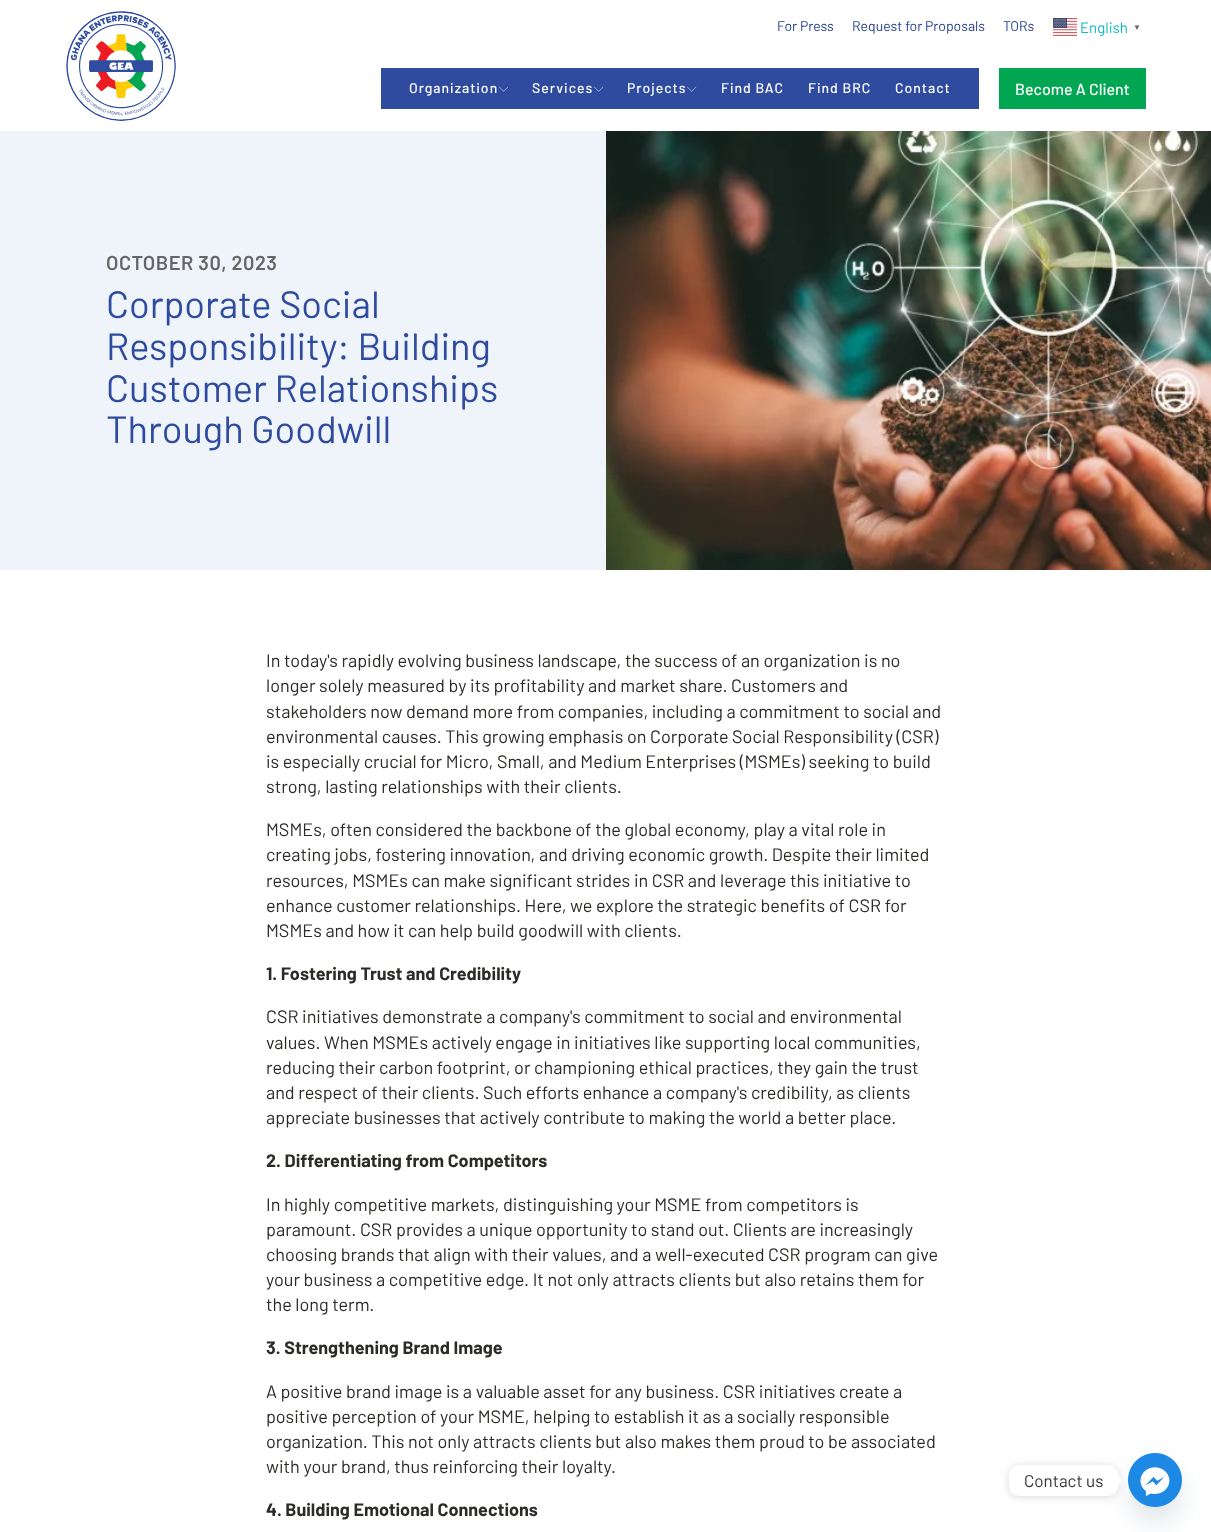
async function draw(canvas) {
	canvas.width = 1211;
	canvas.height = 1532;
	const c = canvas.getContext('2d');
	c.miterLimit = 4;
	c.fontKerning = 'normal';
	async function loadImage(src) {
		const img = new Image();
		img.src = src;
		await img.decode();
		return img;
	}

	c.fillStyle = '#fff';
	c.fillRect(0, 0, 1211, 1532);
	c.font = '14px Barlow';
	c.fillStyle = '#25408f';
	for (const [text, x, y] of [
		['For Press', 777, 31],
		['Request for Proposals', 852, 31],
		['TORs', 1003, 31],
	]) {
		c.fillText(text, x, y);
	}
	c.drawImage(await loadImage('img1.png'), 1053, 18, 24, 18);
	c.font = '15px Barlow';
	c.fillStyle = '#11b8c1';
	c.fillText('English', 1080, 33);
	c.font = 'bold 8px Liberation Serif';
	c.fillStyle = '#666';
	c.fillText('▼', 1133, 30);
	c.drawImage(await loadImage('img2.png'), 66, 11, 110, 110);
	c.fillStyle = '#2e4ba0';
	c.fillRect(381, 68, 598, 41);
	c.letterSpacing = '1px';
	c.font = '500 14px Barlow';
	c.fillStyle = '#fff';
	c.fillText('Organization', 409, 93);
	c.drawImage(await loadImage('img3.png'), 499, 86, 9, 6);
	c.fillText('Services', 532, 93);
	c.drawImage(await loadImage('img3.png'), 594, 86, 9, 6);
	c.fillText('Projects', 627, 93);
	c.drawImage(await loadImage('img4.png'), 687, 86, 10, 6);
	for (const [text, x, y] of [
		['Find BAC', 721, 93],
		['Find BRC', 808, 93],
		['Contact', 895, 93],
	]) {
		c.fillText(text, x, y);
	}
	c.fillStyle = '#00a651';
	c.fillRect(999, 68, 147, 41);
	c.letterSpacing = '0px';
	c.font = '500 16px Barlow';
	c.fillStyle = '#fff';
	c.fillText('Become A Client', 1015, 95);
	c.fillStyle = '#eff4fb';
	c.fillRect(0, 131, 606, 439);
	c.letterSpacing = '0.5px';
	c.font = '600 20px Barlow';
	c.fillStyle = '#666';
	c.fillText('OCTOBER 30, 2023', 106, 270);
	c.letterSpacing = '0px';
	c.font = '38px Barlow';
	c.fillStyle = '#2e4ba0';
	for (const [text, x, y] of [
		['Corporate Social', 106, 318],
		['Responsibility: Building', 106, 360],
		['Customer Relationships', 106, 402],
		['Through Goodwill', 106, 443],
	]) {
		c.fillText(text, x, y);
	}
	c.drawImage(await loadImage('img5.png'), 606, 131, 605, 439);
	c.font = '18px Barlow';
	c.fillStyle = '#2b2c28';
	for (const [text, x, y] of [
		['In today\'s rapidly evolving business landscape, the success of an organization is no', 266, 667],
		['longer solely measured by its profitability and market share. Customers and', 266, 692],
		['stakeholders now demand more from companies, including a commitment to social and', 266, 718],
		['environmental causes. This growing emphasis on Corporate Social Responsibility (CSR)', 266, 743],
		['is especially crucial for Micro, Small, and Medium Enterprises (MSMEs) seeking to build', 266, 768],
		['strong, lasting relationships with their clients.', 266, 793],
		['MSMEs, often considered the backbone of the global economy, play a vital role in', 266, 836],
		['creating jobs, fostering innovation, and driving economic growth. Despite their limited', 266, 861],
		['resources, MSMEs can make significant strides in CSR and leverage this initiative to', 266, 887],
		['enhance customer relationships. Here, we explore the strategic benefits of CSR for', 266, 912],
		['MSMEs and how it can help build goodwill with clients.', 266, 937],
	]) {
		c.fillText(text, x, y);
	}
	c.font = 'bold 18px Barlow';
	c.fillText('1. Fostering Trust and Credibility', 266, 980);
	c.font = '18px Barlow';
	for (const [text, x, y] of [
		['CSR initiatives demonstrate a company\'s commitment to social and environmental', 266, 1023],
		['values. When MSMEs actively engage in initiatives like supporting local communities,', 266, 1049],
		['reducing their carbon footprint, or championing ethical practices, they gain the trust', 266, 1074],
		['and respect of their clients. Such efforts enhance a company\'s credibility, as clients', 266, 1099],
		['appreciate businesses that actively contribute to making the world a better place.', 266, 1124],
	]) {
		c.fillText(text, x, y);
	}
	c.font = 'bold 18px Barlow';
	c.fillText('2. Differentiating from Competitors', 266, 1167);
	c.font = '18px Barlow';
	for (const [text, x, y] of [
		['In highly competitive markets, distinguishing your MSME from competitors is', 266, 1211],
		['paramount. CSR provides a unique opportunity to stand out. Clients are increasingly', 266, 1236],
		['choosing brands that align with their values, and a well-executed CSR program can give', 266, 1261],
		['your business a competitive edge. It not only attracts clients but also retains them for', 266, 1286],
		['the long term.', 266, 1311],
	]) {
		c.fillText(text, x, y);
	}
	c.font = 'bold 18px Barlow';
	c.fillText('3. Strengthening Brand Image', 266, 1354);
	c.font = '18px Barlow';
	for (const [text, x, y] of [
		['A positive brand image is a valuable asset for any business. CSR initiatives create a', 266, 1398],
		['positive perception of your MSME, helping to establish it as a socially responsible', 266, 1423],
		['organization. This not only attracts clients but also makes them proud to be associated', 266, 1448],
		['with your brand, thus reinforcing their loyalty.', 266, 1473],
	]) {
		c.fillText(text, x, y);
	}
	c.font = 'bold 18px Barlow';
	c.fillText('4. Building Emotional Connections', 266, 1516);
	c.fillStyle = '#49687e29';
	c.filter = 'blur(12px)';
	c.beginPath();
	c.roundRect(1128, 1469, 54, 54, 27);
	c.fill();
	c.filter = 'none';
	c.drawImage(await loadImage('img6.png'), 1128, 1453, 54, 54);
	c.fillStyle = '#00000026';
	c.filter = 'blur(4px)';
	c.beginPath();
	c.roundRect(1009, 1466, 109, 31, 10);
	c.fill();
	c.filter = 'none';
	c.fillStyle = '#fff';
	c.beginPath();
	c.roundRect(1009, 1465, 109, 31, 10);
	c.fill();
	c.font = '17px Barlow';
	c.fillStyle = '#333';
	c.fillText('Contact us', 1024, 1487);
	c.fillStyle = '#fff';
	c.beginPath();
	c.moveTo(1118, 1485.5);
	c.lineTo(1118, 1475.5);
	c.lineTo(1123, 1480.5);
	c.closePath();
	c.fill();
}

draw(document.querySelector('canvas'));
